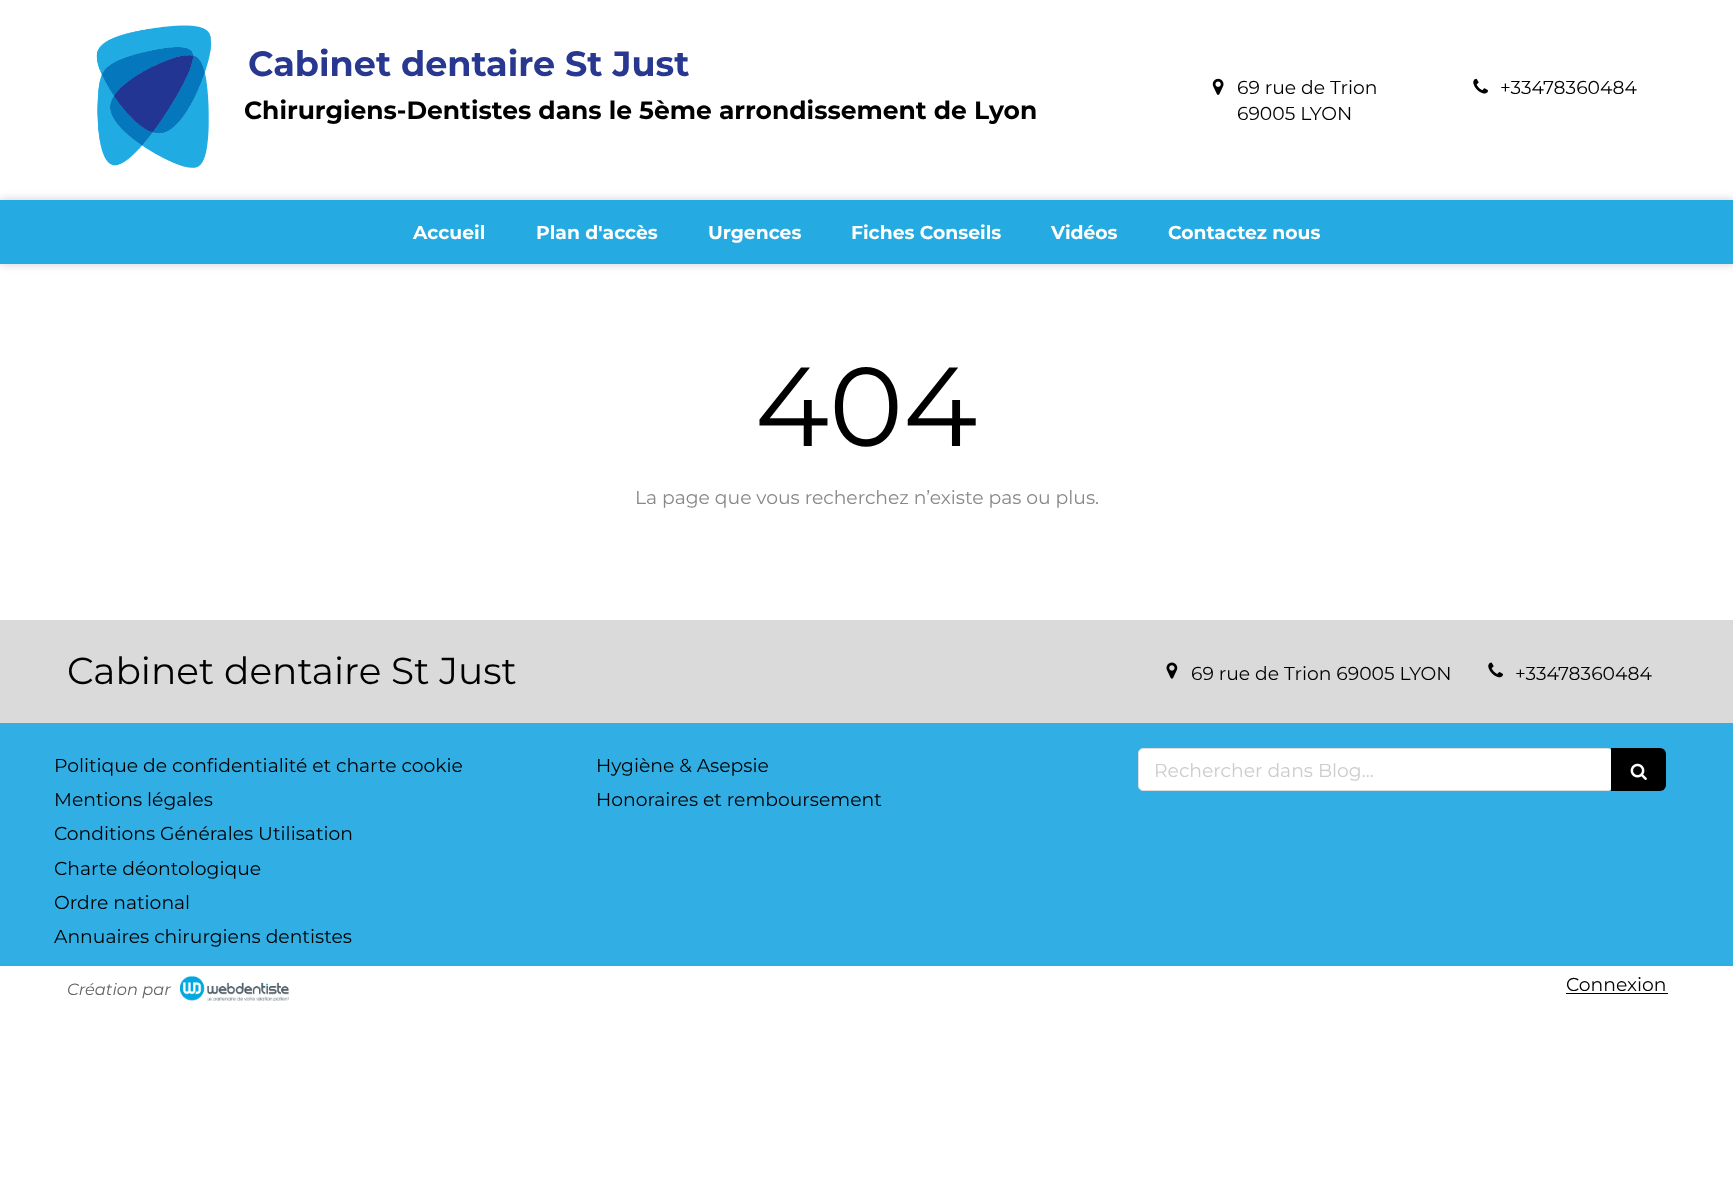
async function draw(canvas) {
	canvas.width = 1733;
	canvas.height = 1190;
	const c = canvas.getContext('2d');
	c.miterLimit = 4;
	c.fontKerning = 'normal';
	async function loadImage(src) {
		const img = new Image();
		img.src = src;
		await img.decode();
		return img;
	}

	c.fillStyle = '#fff';
	c.fillRect(0, 0, 1733, 1190);
	c.drawImage(await loadImage('img1.png'), 96, 25, 116, 143);
	c.font = 'bold 35px Montserrat';
	c.fillStyle = '#283891';
	c.fillText('Cabinet dentaire St Just', 248, 76);
	c.font = 'bold 25px Montserrat';
	c.fillStyle = '#000';
	c.fillText('Chirurgiens-Dentistes dans le 5ème arrondissement de Lyon', 244, 119);
	c.drawImage(await loadImage('img2.png'), 1212, 78, 12, 17);
	c.font = '18.75px Montserrat';
	c.fillText('69 rue de Trion', 1237, 94);
	c.fillText('69005 LYON', 1237, 120);
	c.drawImage(await loadImage('img3.png'), 1473, 78, 15, 16);
	c.fillText('+33478360484', 1500, 94);
	c.fillStyle = '#00000033';
	c.filter = 'blur(5px)';
	c.beginPath();
	c.rect(0, 200, 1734, 64);
	c.fill();
	c.filter = 'none';
	c.fillStyle = '#25aae1';
	c.fillRect(0, 200, 1733, 64);
	c.font = 'bold 18.75px Montserrat';
	c.fillStyle = '#fff';
	for (const [text, x, y] of [
		['Accueil', 413, 239],
		['Plan d\'accès', 536, 239],
		['Urgences', 708, 239],
		['Fiches Conseils', 851, 239],
		['Vidéos', 1051, 239],
		['Contactez nous', 1168, 239],
	]) {
		c.fillText(text, x, y);
	}
	c.font = '112px Montserrat';
	c.fillStyle = '#000';
	c.fillText('404', 755, 446);
	c.font = '18.75px Montserrat';
	c.fillStyle = '#888';
	c.fillText('La page que vous recherchez n’existe pas ou plus.', 635, 504);
	c.fillStyle = '#dadada';
	c.fillRect(0, 620, 1733, 103);
	c.font = '37.5px Montserrat';
	c.fillStyle = '#000';
	c.fillText('Cabinet dentaire St Just', 67, 684);
	c.drawImage(await loadImage('img4.png'), 1166, 662, 12, 17);
	c.font = '18.75px Montserrat';
	c.fillText('69 rue de Trion 69005 LYON', 1191, 680);
	c.drawImage(await loadImage('img5.png'), 1488, 662, 15, 16);
	c.fillText('+33478360484', 1515, 680);
	c.fillStyle = '#31aee4';
	c.fillRect(0, 723, 1733, 243);
	c.fillStyle = '#000';
	for (const [text, x, y] of [
		['Politique de confidentialité et charte cookie', 54, 772],
		['Mentions légales', 54, 806],
		['Conditions Générales Utilisation', 54, 840],
		['Charte déontologique', 54, 875],
		['Ordre national', 54, 909],
		['Annuaires chirurgiens dentistes', 54, 943],
		['Hygiène & Asepsie', 596, 772],
		['Honoraires et remboursement', 596, 806],
	]) {
		c.fillText(text, x, y);
	}
	c.fillStyle = '#fff';
	c.beginPath();
	c.roundRect(1138.5, 748.5, 474, 42, 4.5);
	c.fill();
	c.strokeStyle = '#ddd';
	c.stroke();
	c.fillStyle = '#ccc';
	c.fillText('Rechercher dans Blog...', 1154, 777);
	c.fillStyle = '#000';
	c.beginPath();
	c.roundRect(1611, 748, 55, 43, [0, 6, 6, 0]);
	c.fill();
	c.drawImage(await loadImage('img6.png'), 1630, 763, 17, 17);
	c.font = 'italic 16.25px Montserrat';
	c.fillStyle = '#646464';
	c.fillText('Création par', 67, 995);
	c.drawImage(await loadImage('img7.png'), 180, 976, 109, 25);
	c.font = '18.75px Montserrat';
	c.fillStyle = '#000';
	c.fillText('Connexion', 1566, 991);
	c.fillRect(1566, 993, 102, 1);
}

draw(document.querySelector('canvas'));
